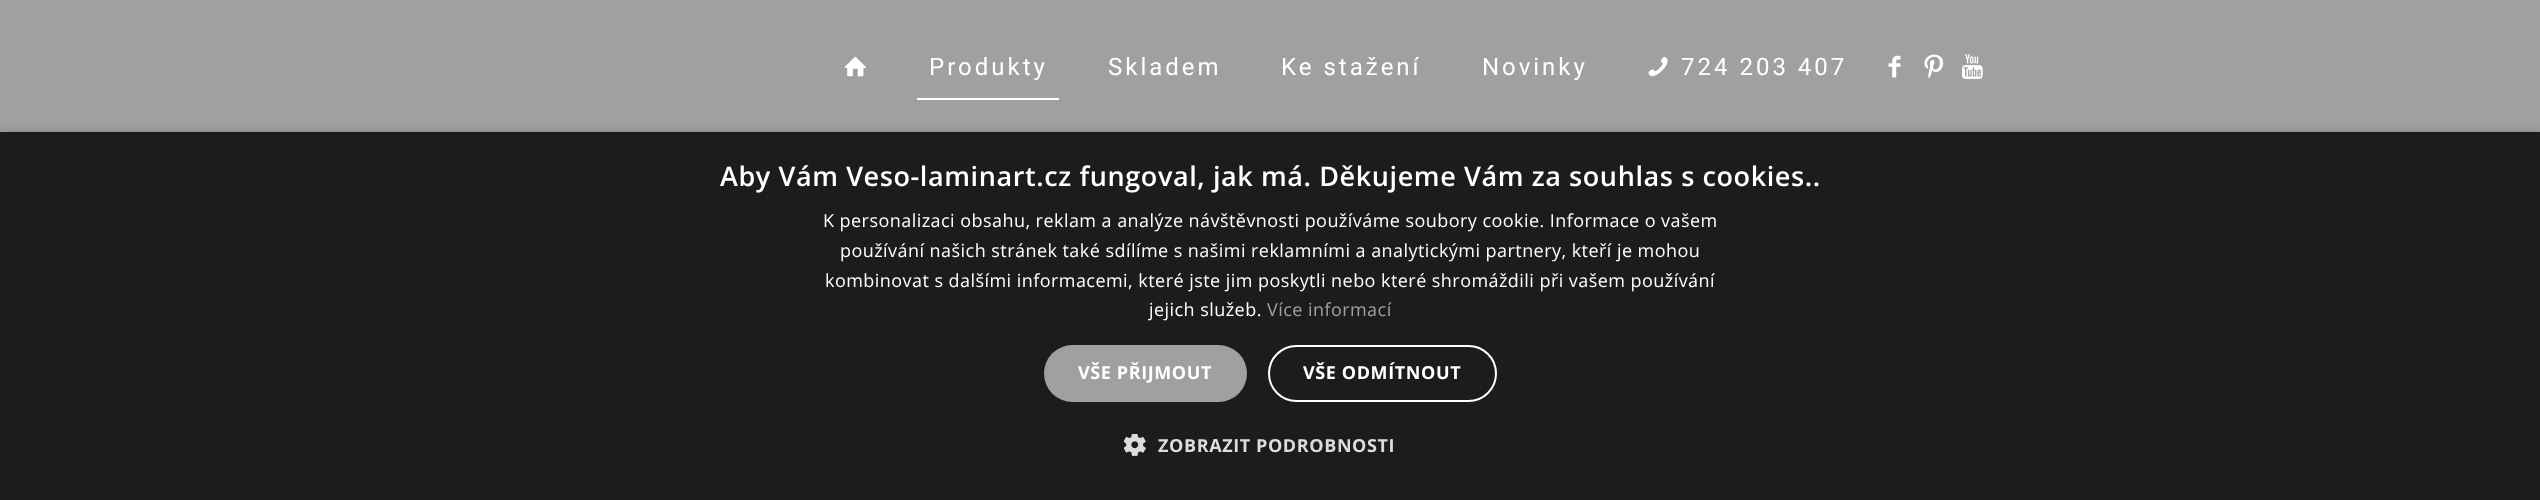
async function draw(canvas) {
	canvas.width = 2540;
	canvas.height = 500;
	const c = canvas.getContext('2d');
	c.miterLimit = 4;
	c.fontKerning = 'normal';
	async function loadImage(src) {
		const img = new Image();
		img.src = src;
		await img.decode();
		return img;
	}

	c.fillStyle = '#a0a0a0';
	c.fillRect(0, 0, 2540, 500);
	c.drawImage(await loadImage('img1.png'), 844, 56, 22, 21);
	c.letterSpacing = '3px';
	c.font = '24px Roboto';
	c.fillStyle = '#fff';
	c.fillText('Produkty', 929, 75);
	c.fillRect(917, 98, 142, 2);
	for (const [text, x, y] of [
		['Skladem', 1108, 75],
		['Ke stažení', 1281, 75],
		['Novinky', 1482, 75],
	]) {
		c.fillText(text, x, y);
	}
	c.drawImage(await loadImage('img2.png'), 1648, 57, 20, 20);
	c.fillText('724 203 407', 1681, 75);
	c.drawImage(await loadImage('img3.png'), 1888, 55, 13, 23);
	c.drawImage(await loadImage('img4.png'), 1924, 54, 20, 25);
	c.drawImage(await loadImage('img5.png'), 1962, 54, 21, 25);
	c.fillStyle = '#00000059';
	c.filter = 'blur(6px)';
	c.beginPath();
	c.rect(2, 135, 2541, 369);
	c.fill();
	c.filter = 'none';
	c.fillStyle = '#1c1c1c';
	c.fillRect(0, 132, 2540, 368);
	c.letterSpacing = '0.6px';
	c.font = '600 27px Open Sans';
	c.fillStyle = '#fff';
	c.fillText('Aby Vám Veso-laminart.cz fungoval, jak má. Děkujeme Vám za souhlas s cookies..', 720, 186);
	c.letterSpacing = '0.45px';
	c.font = '18px Open Sans';
	for (const [text, x, y] of [
		['K personalizaci obsahu, reklam a analýze návštěvnosti používáme soubory cookie. Informace o vašem', 823, 227],
		['používání našich stránek také sdílíme s našimi reklamními a analytickými partnery, kteří je mohou', 840, 257],
		['kombinovat s dalšími informacemi, které jste jim poskytli nebo které shromáždili při vašem používání', 825, 287],
		['jejich služeb.', 1149, 316],
	]) {
		c.fillText(text, x, y);
	}
	c.fillStyle = '#a0a0a0';
	c.fillText('Více informací', 1267, 316);
	c.beginPath();
	c.roundRect(1044, 345, 203, 57, 28.5);
	c.fill();
	c.letterSpacing = '0.6px';
	c.font = 'bold 18px Open Sans';
	c.fillStyle = '#fff';
	c.fillText('VŠE PŘIJMOUT', 1078, 379);
	c.beginPath();
	c.roundRect(1269, 346, 227, 55, 27.5);
	c.strokeStyle = '#fff';
	c.lineWidth = 2;
	c.stroke();
	c.fillText('VŠE ODMÍTNOUT', 1303, 379);
	c.drawImage(await loadImage('img6.png'), 1124, 434, 22, 22);
	c.fillStyle = '#ddd';
	c.fillText('ZOBRAZIT PODROBNOSTI', 1158, 452);
}

draw(document.querySelector('canvas'));
